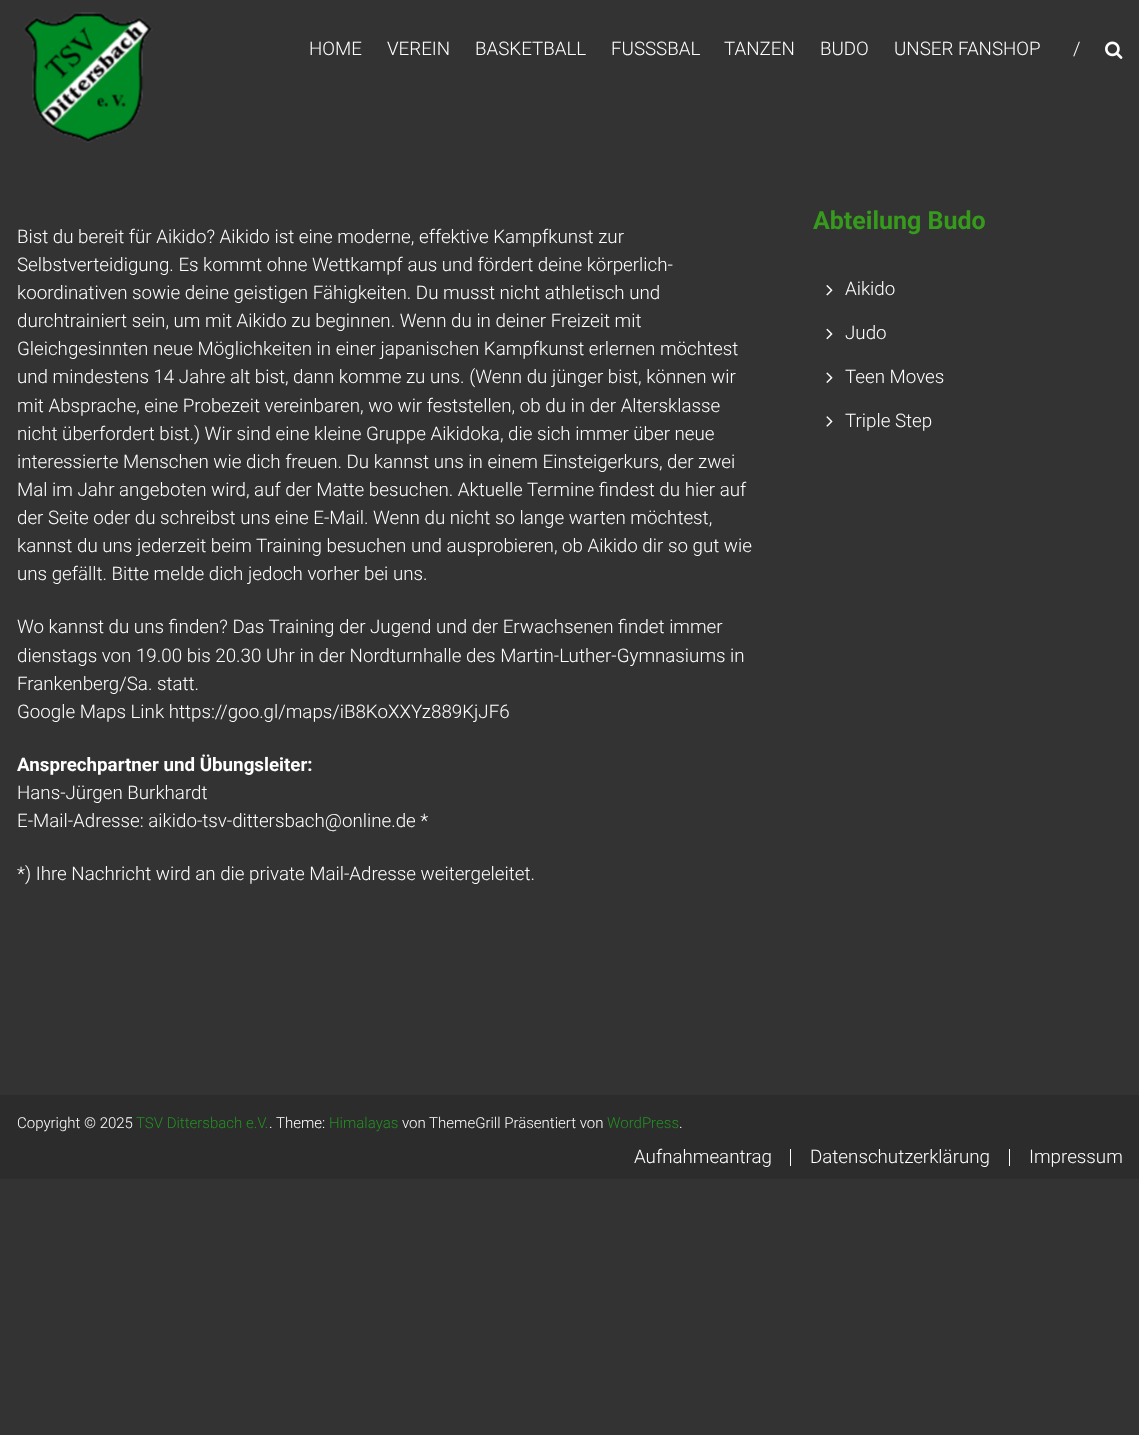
async function draw(canvas) {
	canvas.width = 1139;
	canvas.height = 1435;
	const c = canvas.getContext('2d');
	c.miterLimit = 4;
	c.fontKerning = 'normal';
	async function loadImage(src) {
		const img = new Image();
		img.src = src;
		await img.decode();
		return img;
	}

	c.fillStyle = '#333';
	c.fillRect(0, 0, 1139, 1435);
	c.drawImage(await loadImage('img1.png'), 23, 12, 130, 131);
	c.font = '300 18.75px Roboto';
	c.fillStyle = '#fff';
	for (const [text, x, y] of [
		['HOME', 309, 55],
		['VEREIN', 387, 55],
		['BASKETBALL', 475, 55],
		['FUSSSBAL', 611, 55],
		['TANZEN', 724, 55],
		['BUDO', 820, 55],
		['UNSER FANSHOP', 894, 55],
		['/', 1073, 55],
	]) {
		c.fillText(text, x, y);
	}
	c.drawImage(await loadImage('img2.png'), 1105, 41, 18, 18);
	for (const [text, x, y] of [
		['Bist du bereit für Aikido? Aikido ist eine moderne, effektive Kampfkunst zur', 17, 243],
		['Selbstverteidigung. Es kommt ohne Wettkampf aus und fördert deine körperlich-', 17, 271],
		['koordinativen sowie deine geistigen Fähigkeiten. Du musst nicht athletisch und', 17, 299],
		['durchtrainiert sein, um mit Aikido zu beginnen. Wenn du in deiner Freizeit mit', 17, 327],
		['Gleichgesinnten neue Möglichkeiten in einer japanischen Kampfkunst erlernen möchtest', 17, 355],
		['und mindestens 14 Jahre alt bist, dann komme zu uns. (Wenn du jünger bist, können wir', 17, 383],
		['mit Absprache, eine Probezeit vereinbaren, wo wir feststellen, ob du in der Altersklasse', 17, 412],
		['nicht überfordert bist.) Wir sind eine kleine Gruppe Aikidoka, die sich immer über neue', 17, 440],
		['interessierte Menschen wie dich freuen. Du kannst uns in einem Einsteigerkurs, der zwei', 17, 468],
		['Mal im Jahr angeboten wird, auf der Matte besuchen. Aktuelle Termine findest du hier auf', 17, 496],
		['der Seite oder du schreibst uns eine E-Mail. Wenn du nicht so lange warten möchtest,', 17, 524],
		['kannst du uns jederzeit beim Training besuchen und ausprobieren, ob Aikido dir so gut wie', 17, 552],
		['uns gefällt. Bitte melde dich jedoch vorher bei uns.', 17, 580],
		['Wo kannst du uns finden? Das Training der Jugend und der Erwachsenen findet immer', 17, 633],
		['dienstags von 19.00 bis 20.30 Uhr in der Nordturnhalle des Martin-Luther-Gymnasiums in', 17, 662],
		['Frankenberg/Sa. statt.', 17, 690],
		['Google Maps Link https://goo.gl/maps/iB8KoXXYz889KjJF6', 17, 718],
	]) {
		c.fillText(text, x, y);
	}
	c.font = 'bold 18.75px Roboto';
	c.fillText('Ansprechpartner und Übungsleiter:', 17, 771);
	c.font = '300 18.75px Roboto';
	for (const [text, x, y] of [
		['Hans-Jürgen Burkhardt', 17, 799],
		['E-Mail-Adresse: aikido-tsv-dittersbach@online.de *', 17, 827],
		['*) Ihre Nachricht wird an die private Mail-Adresse weitergeleitet.', 17, 880],
	]) {
		c.fillText(text, x, y);
	}
	c.font = 'bold 25px Roboto';
	c.fillStyle = '#369b1d';
	c.fillText('Abteilung Budo', 813, 229);
	c.drawImage(await loadImage('img3.png'), 826, 285, 7, 11);
	c.font = '300 18.75px Roboto';
	c.fillStyle = '#fff';
	c.fillText('Aikido', 845, 295);
	c.drawImage(await loadImage('img4.png'), 826, 328, 7, 12);
	c.fillText('Judo', 845, 339);
	c.drawImage(await loadImage('img5.png'), 826, 372, 7, 11);
	c.fillText('Teen Moves', 845, 383);
	c.drawImage(await loadImage('img6.png'), 826, 416, 7, 11);
	c.fillText('Triple Step', 845, 427);
	c.fillStyle = '#2c2c2c';
	c.fillRect(0, 1095, 1139, 84);
	c.font = '300 15px Roboto';
	c.fillStyle = '#fff';
	c.fillText('Copyright © 2025', 17, 1128);
	c.fillStyle = '#239121';
	c.fillText('TSV Dittersbach e.V.', 136, 1128);
	c.fillStyle = '#fff';
	c.fillText('. Theme:', 269, 1128);
	c.fillStyle = '#239121';
	c.fillText('Himalayas', 329, 1128);
	c.fillStyle = '#fff';
	c.fillText('von ThemeGrill Präsentiert von', 402, 1128);
	c.fillStyle = '#239121';
	c.fillText('WordPress', 607, 1128);
	c.fillStyle = '#fff';
	c.fillText('.', 679, 1128);
	c.font = '300 18.75px Roboto';
	c.fillText('Aufnahmeantrag', 634, 1163);
	c.fillRect(790, 1149, 1, 17);
	c.fillText('Datenschutzerklärung', 810, 1163);
	c.fillRect(1009, 1149, 1, 17);
	c.fillText('Impressum', 1029, 1163);
}

draw(document.querySelector('canvas'));
